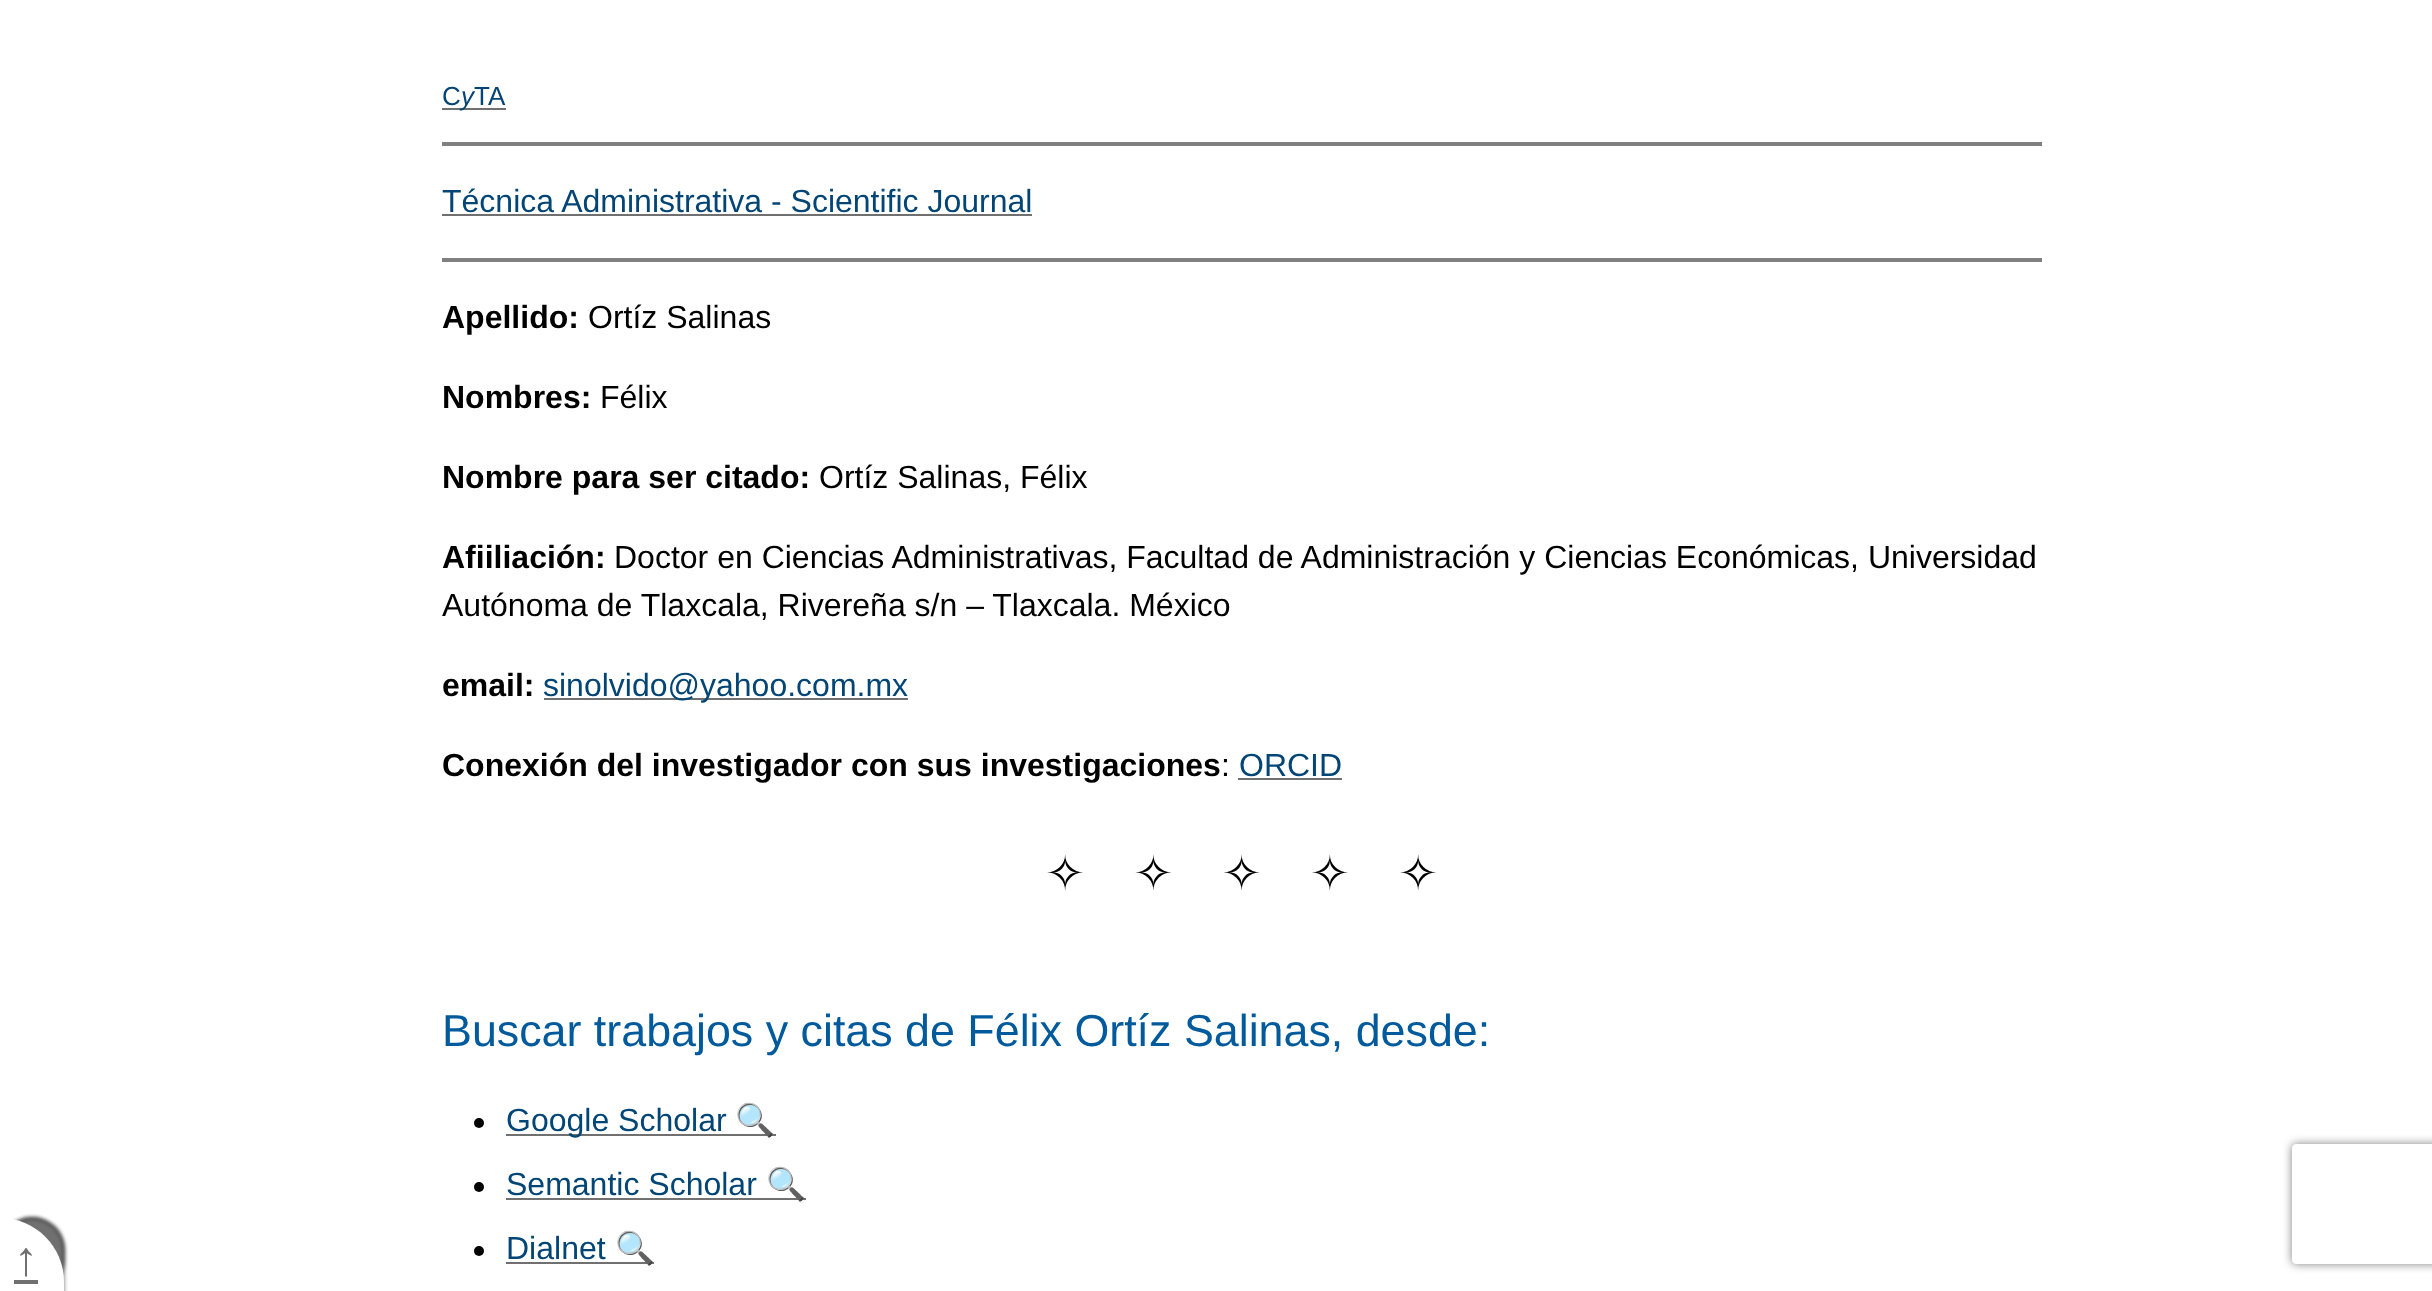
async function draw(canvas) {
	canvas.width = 2432;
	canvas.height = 1291;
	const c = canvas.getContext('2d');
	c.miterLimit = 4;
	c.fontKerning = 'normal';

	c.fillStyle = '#fff';
	c.fillRect(0, 0, 2432, 1291);
	c.font = '26px Liberation Sans';
	c.fillStyle = '#034575';
	c.fillText('C', 442, 105);
	c.fillStyle = '#707070';
	c.fillRect(442, 108, 32, 2);
	c.font = 'italic 26px Liberation Sans';
	c.fillStyle = '#034575';
	c.fillText('y', 461, 105);
	c.fillStyle = '#707070';
	c.fillRect(474, 108, 32, 2);
	c.font = '26px Liberation Sans';
	c.fillStyle = '#034575';
	c.fillText('TA', 474, 105);
	c.fillStyle = '#808080';
	c.fillRect(442, 142, 1600, 4);
	c.font = '32px Liberation Sans';
	c.fillStyle = '#034575';
	c.fillText('Técnica Administrativa - Scientific Journal', 442, 212);
	c.fillStyle = '#707070';
	c.fillRect(442, 214, 590, 2);
	c.fillStyle = '#808080';
	c.fillRect(442, 258, 1600, 4);
	c.fillStyle = '#000';
	c.filter = 'blur(2px)';
	c.beginPath();
	c.roundRect(0, 1218, 64, 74, 64);
	c.fill();
	c.filter = 'none';
	c.fillStyle = '#707070';
	c.filter = 'blur(2px)';
	c.beginPath();
	c.roundRect(0, 1218, 64, 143, 64);
	c.fill();
	c.filter = 'none';
	c.fillStyle = '#fff';
	c.beginPath();
	c.moveTo(0, 1218);
	c.bezierCurveTo(35.5, 1218, 64, 1246.5, 64, 1282);
	c.lineTo(64, 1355);
	c.lineTo(0, 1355);
	c.closePath();
	c.fill();
	c.font = '48px Liberation Sans';
	c.fillStyle = '#707070';
	c.fillText('↑', 14, 1275);
	c.fillRect(14, 1280, 24, 4);
	c.font = 'bold 32px Liberation Sans';
	c.fillStyle = '#000';
	c.fillText('Apellido:', 442, 328);
	c.font = '32px Liberation Sans';
	c.fillText('Ortíz Salinas', 588, 328);
	c.font = 'bold 32px Liberation Sans';
	c.fillText('Nombres:', 442, 408);
	c.font = '32px Liberation Sans';
	c.fillText('Félix', 600, 408);
	c.font = 'bold 32px Liberation Sans';
	c.fillText('Nombre para ser citado:', 442, 488);
	c.font = '32px Liberation Sans';
	c.fillText('Ortíz Salinas, Félix', 819, 488);
	c.font = 'bold 32px Liberation Sans';
	c.fillText('Afiiliación:', 442, 568);
	c.font = '32px Liberation Sans';
	c.fillText('Doctor en Ciencias Administrativas, Facultad de Administración y Ciencias Económicas, Universidad', 614, 568);
	c.fillText('Autónoma de Tlaxcala, Rivereña s/n – Tlaxcala. México', 442, 616);
	c.font = 'bold 32px Liberation Sans';
	c.fillText('email:', 442, 696);
	c.fillStyle = '#707070';
	c.fillRect(544, 698, 364, 2);
	c.font = '32px Liberation Sans';
	c.fillStyle = '#034575';
	c.fillText('sinolvido@yahoo.com.mx', 543, 696);
	c.font = 'bold 32px Liberation Sans';
	c.fillStyle = '#000';
	c.fillText('Conexión del investigador con sus investigaciones', 442, 776);
	c.font = '32px Liberation Sans';
	c.fillText(':', 1221, 776);
	c.fillStyle = '#034575';
	c.fillText('ORCID', 1239, 776);
	c.fillStyle = '#707070';
	c.fillRect(1238, 778, 104, 2);
	c.font = '48px DejaVu Sans';
	c.fillStyle = '#000';
	c.fillText('✧ ✧ ✧ ✧ ✧', 1045, 890);
	c.font = '44.8px Liberation Sans';
	c.fillStyle = '#005a9c';
	c.fillText('Buscar trabajos y citas de Félix Ortíz Salinas, desde:', 442, 1046);
	c.fillStyle = '#000';
	c.beginPath();
	c.arc(479, 1123, 5, 0, 2 * Math.PI);
	c.fill();
	c.fillStyle = '#707070';
	c.fillRect(506, 1134, 270, 2);
	c.font = '32px Liberation Sans';
	c.fillStyle = '#034575';
	c.fillText('Google Scholar', 506, 1131);
	c.font = '32px Noto Color Emoji';
	c.fillText('🔍', 735, 1131);
	c.fillStyle = '#000';
	c.beginPath();
	c.arc(479, 1187, 5, 0, 2 * Math.PI);
	c.fill();
	c.font = '32px Liberation Sans';
	c.fillStyle = '#034575';
	c.fillText('Semantic Scholar', 506, 1195);
	c.fillStyle = '#707070';
	c.fillRect(506, 1198, 300, 2);
	c.font = '32px Noto Color Emoji';
	c.fillStyle = '#034575';
	c.fillText('🔍', 766, 1195);
	c.fillStyle = '#000';
	c.beginPath();
	c.arc(479, 1251, 5, 0, 2 * Math.PI);
	c.fill();
	c.font = '32px Liberation Sans';
	c.fillStyle = '#034575';
	c.fillText('Dialnet', 506, 1259);
	c.fillStyle = '#707070';
	c.fillRect(506, 1262, 148, 2);
	c.font = '32px Noto Color Emoji';
	c.fillStyle = '#034575';
	c.fillText('🔍', 615, 1259);
	c.save();
	c.beginPath();
	c.moveTo(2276, 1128);
	c.lineTo(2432, 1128);
	c.lineTo(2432, 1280);
	c.lineTo(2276, 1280);
	c.closePath();
	c.moveTo(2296, 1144);
	c.lineTo(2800, 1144);
	c.bezierCurveTo(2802, 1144, 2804, 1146, 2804, 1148);
	c.lineTo(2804, 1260);
	c.bezierCurveTo(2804, 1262, 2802, 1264, 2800, 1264);
	c.lineTo(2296, 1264);
	c.bezierCurveTo(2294, 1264, 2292, 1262, 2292, 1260);
	c.lineTo(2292, 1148);
	c.bezierCurveTo(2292, 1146, 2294, 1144, 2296, 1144);
	c.closePath();
	c.clip('evenodd');
	c.fillStyle = '#808080';
	c.filter = 'blur(5px)';
	c.beginPath();
	c.roundRect(2292, 1144, 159, 120, 4);
	c.fill();
	c.filter = 'none';
	c.restore();
}

draw(document.querySelector('canvas'));
